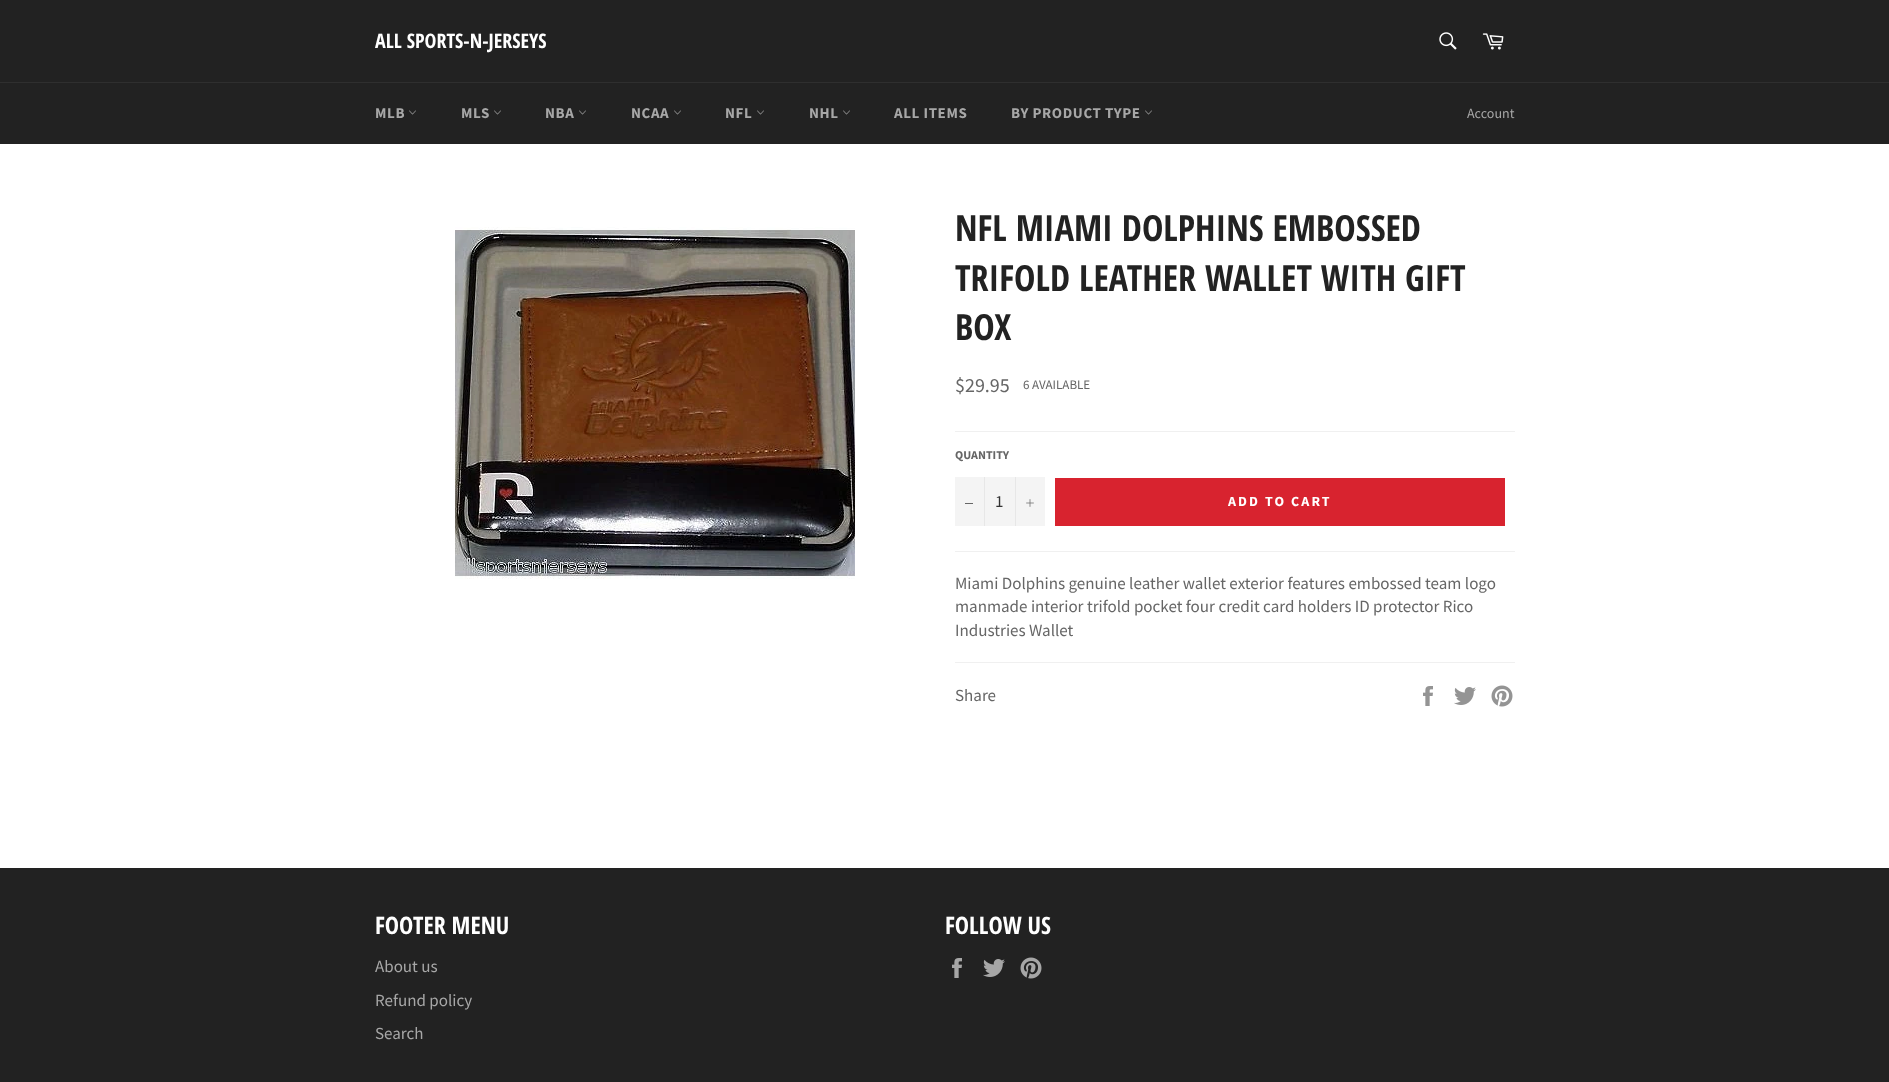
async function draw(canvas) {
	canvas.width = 1889;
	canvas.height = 1082;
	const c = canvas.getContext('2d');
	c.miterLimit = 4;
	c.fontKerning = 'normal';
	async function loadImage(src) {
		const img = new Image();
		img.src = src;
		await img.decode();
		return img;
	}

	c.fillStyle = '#222';
	c.fillRect(0, 0, 1889, 1082);
	c.font = 'bold 20px Open Sans Condensed';
	c.fillStyle = '#fff';
	c.fillText('ALL SPORTS-N-JERSEYS', 375, 48);
	c.drawImage(await loadImage('img1.png'), 1439, 32, 18, 18);
	c.drawImage(await loadImage('img2.png'), 1482, 33, 22, 17);
	c.fillStyle = '#2f2f2f';
	c.fillRect(0, 82, 1889, 1);
	c.letterSpacing = '0.6px';
	c.font = 'bold 15px Source Sans Pro';
	c.fillStyle = '#a7a7a7';
	c.fillText('MLB', 375, 118);
	c.drawImage(await loadImage('img3.png'), 409, 110, 7, 5);
	c.fillText('MLS', 461, 118);
	c.drawImage(await loadImage('img3.png'), 494, 110, 7, 5);
	c.fillText('NBA', 545, 118);
	c.drawImage(await loadImage('img3.png'), 579, 110, 7, 5);
	c.fillText('NCAA', 631, 118);
	c.drawImage(await loadImage('img3.png'), 674, 110, 7, 5);
	c.fillText('NFL', 725, 118);
	c.drawImage(await loadImage('img3.png'), 757, 110, 7, 5);
	c.fillText('NHL', 809, 118);
	c.drawImage(await loadImage('img3.png'), 843, 110, 7, 5);
	c.fillText('ALL ITEMS', 894, 118);
	c.fillText('BY PRODUCT TYPE', 1011, 118);
	c.drawImage(await loadImage('img3.png'), 1145, 110, 7, 5);
	c.letterSpacing = '0px';
	c.font = '14px Source Sans Pro';
	c.fillText('Account', 1467, 118);
	c.fillStyle = '#fff';
	c.fillRect(0, 144, 1889, 724);
	c.drawImage(await loadImage('img4.png'), 455, 227, 400, 352);
	c.font = 'bold 36px Open Sans Condensed';
	c.fillStyle = '#222';
	for (const [text, x, y] of [
		['NFL MIAMI DOLPHINS EMBOSSED', 955, 241],
		['TRIFOLD LEATHER WALLET WITH GIFT', 955, 291],
		['BOX', 955, 340],
	]) {
		c.fillText(text, x, y);
	}
	c.font = '20px Source Sans Pro';
	c.fillStyle = '#666';
	c.fillText('$29.95', 955, 392);
	c.font = '13px Source Sans Pro';
	c.fillText('6 AVAILABLE', 1023, 389);
	c.fillStyle = '#f0f0f0';
	c.fillRect(955, 431, 560, 1);
	c.font = 'bold 12px Source Sans Pro';
	c.fillStyle = '#666';
	c.fillText('QUANTITY', 955, 459);
	for (const [x, y, w, h, color] of [
		[955, 477, 90, 49, '#f4f4f4'],
		[984, 477, 1, 49, '#e7e7e7'],
		[965, 503, 8, 1, '#666'],
	]) {
		c.fillStyle = color;
		c.fillRect(x, y, w, h);
	}
	c.font = '17px Source Sans Pro';
	c.fillStyle = '#333';
	c.fillText('1', 995, 507);
	c.fillStyle = '#e7e7e7';
	c.fillRect(1015, 477, 1, 49);
	c.drawImage(await loadImage('img5.png'), 1026, 499, 8, 8);
	c.fillStyle = '#d8232f';
	c.fillRect(1055, 478, 450, 48);
	c.letterSpacing = '2.1px';
	c.font = 'bold 14px Source Sans Pro';
	c.fillStyle = '#fff';
	c.fillText('ADD TO CART', 1228, 506);
	c.fillStyle = '#f0f0f0';
	c.fillRect(955, 551, 560, 1);
	c.letterSpacing = '0px';
	c.font = '17px Source Sans Pro';
	c.fillStyle = '#666';
	for (const [text, x, y] of [
		['Miami Dolphins genuine leather wallet exterior features embossed team logo', 955, 589],
		['manmade interior trifold pocket four credit card holders ID protector Rico', 955, 612],
		['Industries Wallet', 955, 636],
	]) {
		c.fillText(text, x, y);
	}
	c.fillStyle = '#f0f0f0';
	c.fillRect(955, 662, 560, 1);
	c.fillStyle = '#666';
	c.fillText('Share', 955, 701);
	c.drawImage(await loadImage('img6.png'), 1423, 686, 10, 20);
	c.drawImage(await loadImage('img7.png'), 1454, 687, 22, 18);
	c.drawImage(await loadImage('img8.png'), 1491, 685, 22, 22);
	c.font = 'bold 24px Open Sans Condensed';
	c.fillStyle = '#fff';
	c.fillText('FOOTER MENU', 375, 934);
	c.font = '17px Source Sans Pro';
	c.fillStyle = '#a7a7a7';
	for (const [text, x, y] of [
		['About us', 375, 972],
		['Refund policy', 375, 1006],
		['Search', 375, 1039],
	]) {
		c.fillText(text, x, y);
	}
	c.font = 'bold 24px Open Sans Condensed';
	c.fillStyle = '#fff';
	c.fillText('FOLLOW US', 945, 934);
	c.drawImage(await loadImage('img9.png'), 952, 958, 10, 20);
	c.drawImage(await loadImage('img10.png'), 983, 959, 22, 18);
	c.drawImage(await loadImage('img11.png'), 1020, 957, 22, 22);
}

draw(document.querySelector('canvas'));
